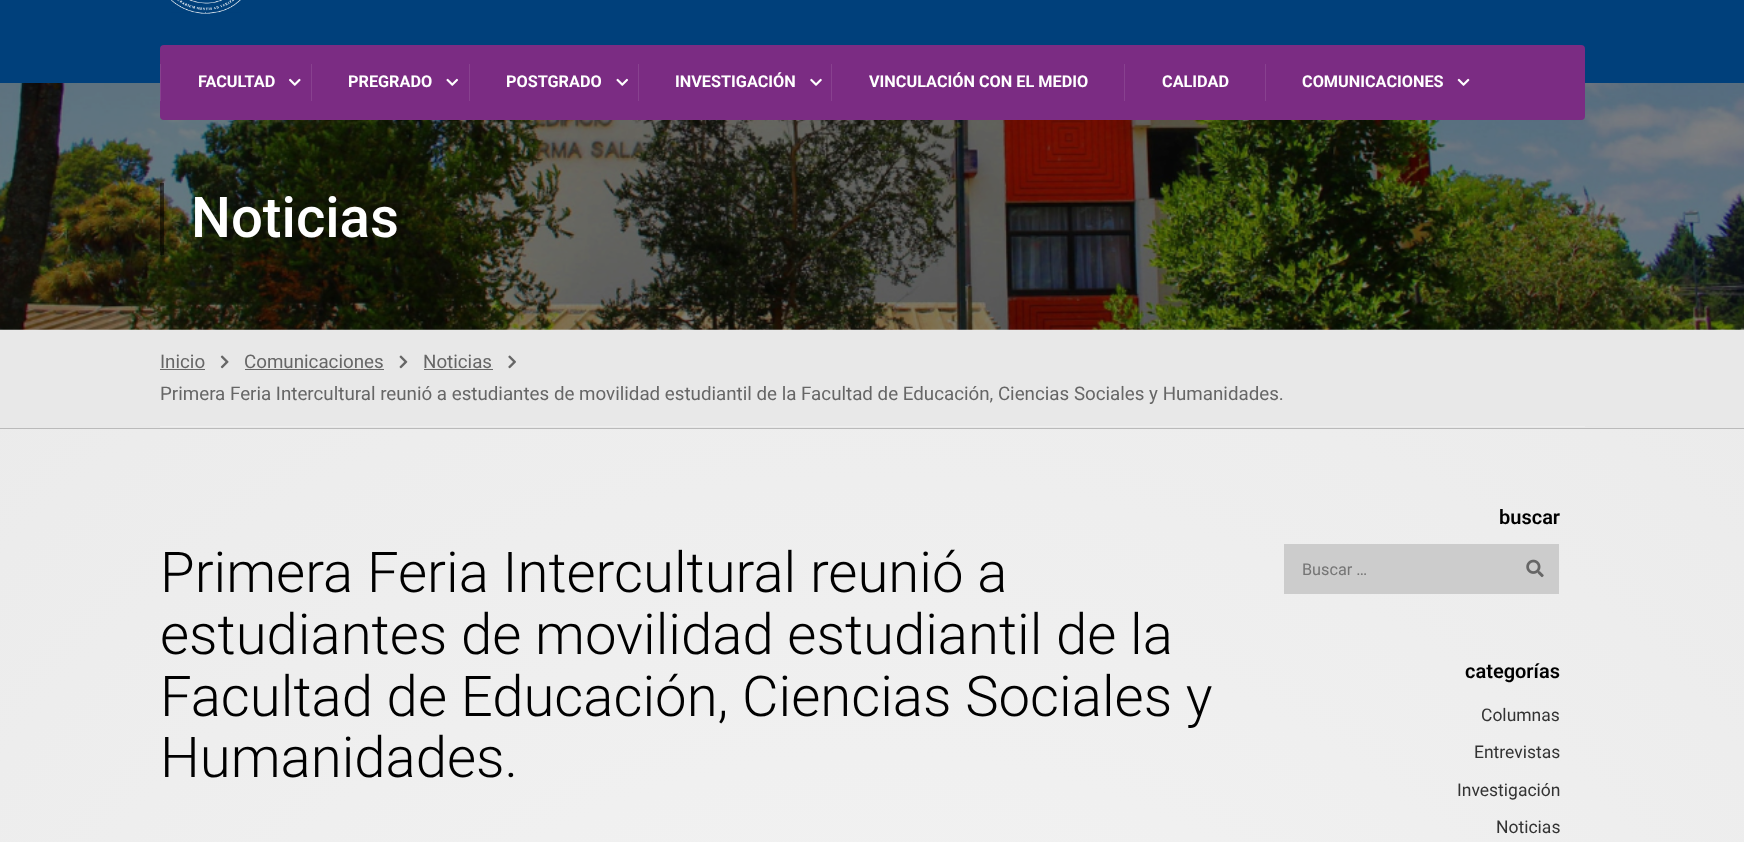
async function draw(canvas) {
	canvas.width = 1744;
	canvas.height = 842;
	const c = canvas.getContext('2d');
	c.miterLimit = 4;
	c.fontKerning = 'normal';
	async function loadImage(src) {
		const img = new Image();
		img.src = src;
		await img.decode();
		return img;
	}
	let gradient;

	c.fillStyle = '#fff';
	c.fillRect(0, 0, 1744, 842);
	gradient = c.createRadialGradient(873, 1452, 0, 873, 1452, 1823);
	gradient.addColorStop(0, '#f5f5f5');
	gradient.addColorStop(0.99, '#e8e8e8');
	c.fillStyle = gradient;
	c.fillRect(0, 329, 1744, 513);
	c.fillStyle = '#00407b';
	c.fillRect(0, 0, 1744, 83);
	c.drawImage(await loadImage('img1.png'), 171, 0, 70, 14);
	c.drawImage(await loadImage('img6.png'), 0, 83, 1744, 247);
	c.fillStyle = '#7b2c83';
	c.beginPath();
	c.roundRect(160, 45, 1425, 75, 4);
	c.fill();
	c.fillStyle = '#88418f';
	c.fillRect(160, 64, 1, 37);
	c.font = 'bold 16.25px Roboto';
	c.fillStyle = '#fff';
	c.fillText('FACULTAD', 198, 87);
	c.drawImage(await loadImage('img2.png'), 289, 78, 12, 8);
	c.fillStyle = '#88418f';
	c.fillRect(311, 64, 1, 37);
	c.fillStyle = '#fff';
	c.fillText('PREGRADO', 348, 87);
	c.drawImage(await loadImage('img3.png'), 446, 78, 13, 8);
	c.fillStyle = '#88418f';
	c.fillRect(469, 64, 1, 37);
	c.fillStyle = '#fff';
	c.fillText('POSTGRADO', 506, 87);
	c.drawImage(await loadImage('img3.png'), 616, 78, 13, 8);
	c.fillStyle = '#88418f';
	c.fillRect(638, 64, 1, 37);
	c.fillStyle = '#fff';
	c.fillText('INVESTIGACIÓN', 675, 87);
	c.drawImage(await loadImage('img4.png'), 810, 78, 12, 8);
	c.fillStyle = '#88418f';
	c.fillRect(831, 64, 1, 37);
	c.fillStyle = '#fff';
	c.fillText('VINCULACIÓN CON EL MEDIO', 869, 87);
	c.fillStyle = '#88418f';
	c.fillRect(1124, 64, 1, 37);
	c.fillStyle = '#fff';
	c.fillText('CALIDAD', 1162, 87);
	c.fillStyle = '#88418f';
	c.fillRect(1265, 64, 1, 37);
	c.fillStyle = '#fff';
	c.fillText('COMUNICACIONES', 1302, 87);
	c.drawImage(await loadImage('img5.png'), 1457, 78, 13, 8);
	c.fillStyle = '#00000085';
	c.fillRect(160, 183, 4, 72);
	c.font = '500 56.25px Roboto';
	c.fillStyle = '#fff';
	c.fillText('Noticias', 191, 237);
	for (const [x, y, w, h, color] of [
		[0, 330, 1744, 98, '#e8e8e8'],
		[0, 428, 1744, 1, '#bababa'],
		[160, 426, 1425, 1, '#eee'],
	]) {
		c.fillStyle = color;
		c.fillRect(x, y, w, h);
	}
	c.font = '18.75px Roboto';
	c.fillStyle = '#666';
	c.fillText('Inicio', 160, 368);
	c.fillRect(160, 369, 45, 1);
	c.drawImage(await loadImage('img7.png'), 220, 355, 9, 14);
	c.fillText('Comunicaciones', 244, 368);
	c.fillRect(245, 369, 139, 1);
	c.drawImage(await loadImage('img8.png'), 399, 355, 9, 14);
	c.fillText('Noticias', 423, 368);
	c.fillRect(424, 369, 69, 1);
	c.drawImage(await loadImage('img9.png'), 508, 355, 8, 14);
	c.fillText('Primera Feria Intercultural reunió a estudiantes de movilidad estudiantil de la Facultad de Educación, Ciencias Sociales y Humanidades.', 160, 400);
	c.font = '300 56.25px Roboto';
	c.fillStyle = '#000';
	for (const [text, x, y] of [
		['Primera Feria Intercultural reunió a', 160, 592],
		['estudiantes de movilidad estudiantil de la', 160, 654],
		['Facultad de Educación, Ciencias Sociales y', 160, 716],
		['Humanidades.', 160, 777],
	]) {
		c.fillText(text, x, y);
	}
	c.font = '600 20px Roboto';
	c.fillText('buscar', 1499, 524);
	c.fillStyle = '#ccc';
	c.fillRect(1284, 544, 275, 50);
	c.font = '16.25px Roboto';
	c.fillStyle = '#757575';
	c.fillText('Buscar …', 1302, 575);
	c.drawImage(await loadImage('img10.png'), 1526, 559, 18, 19);
	c.font = '600 20px Roboto';
	c.fillStyle = '#000';
	c.fillText('categorías', 1465, 678);
	c.font = '17.5px Roboto';
	c.fillStyle = '#333';
	for (const [text, x, y] of [
		['Columnas', 1481, 721],
		['Entrevistas', 1474, 758],
		['Investigación', 1457, 796],
		['Noticias', 1496, 833],
	]) {
		c.fillText(text, x, y);
	}
}

draw(document.querySelector('canvas'));
